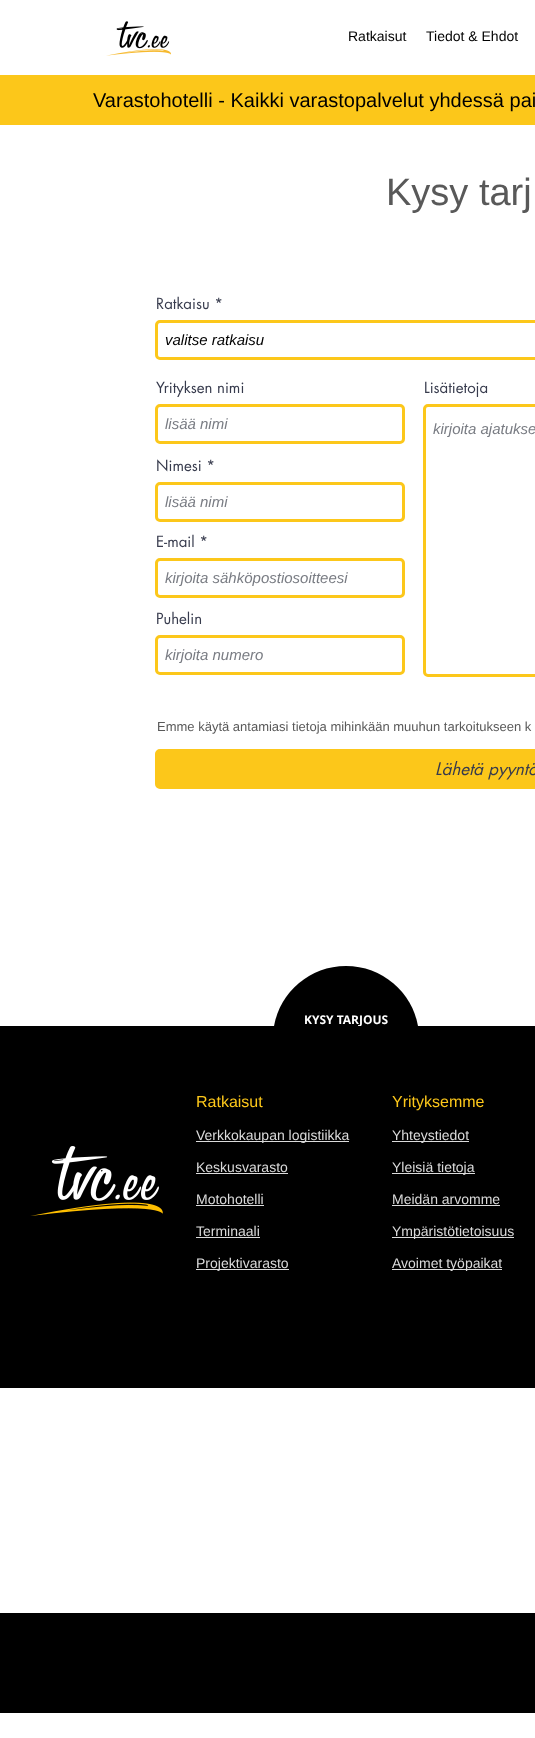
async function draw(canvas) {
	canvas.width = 535;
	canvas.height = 1738;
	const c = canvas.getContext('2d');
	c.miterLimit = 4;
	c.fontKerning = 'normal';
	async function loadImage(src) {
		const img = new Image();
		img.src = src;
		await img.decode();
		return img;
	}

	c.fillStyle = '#fff';
	c.fillRect(0, 0, 535, 1738);
	c.drawImage(await loadImage('img1.png'), 106, 21, 65, 35);
	c.font = '14px Liberation Sans';
	c.fillStyle = '#000';
	c.fillText('Ratkaisut', 348, 41);
	c.fillText('Tiedot & Ehdot', 426, 41);
	c.fillStyle = '#fcc71a';
	c.fillRect(0, 75, 535, 50);
	c.font = '20px Liberation Sans';
	c.fillStyle = '#000';
	c.fillText('Varastohotelli - Kaikki varastopalvelut yhdessä pai', 93, 107);
	c.font = '38px Liberation Sans';
	c.fillStyle = '#595959';
	c.fillText('Kysy tarj', 386, 205);
	c.font = '15px futura';
	c.fillStyle = '#373b4d';
	c.fillText('Ratkaisu *', 156, 309);
	c.beginPath();
	c.roundRect(156.5, 321.5, 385, 37, 3.5);
	c.strokeStyle = '#fcc71a';
	c.lineWidth = 3;
	c.stroke();
	c.font = 'italic 15px Liberation Sans';
	c.fillStyle = '#000';
	c.fillText('valitse ratkaisu', 165, 345);
	c.font = '15px futura';
	c.fillStyle = '#373b4d';
	c.fillText('Yrityksen nimi', 156, 393);
	c.beginPath();
	c.roundRect(156.5, 405.5, 247, 37, 3.5);
	c.stroke();
	c.font = 'italic 15px Liberation Sans';
	c.fillStyle = '#797c83';
	c.fillText('lisää nimi', 165, 429);
	c.font = '15px futura';
	c.fillStyle = '#373b4d';
	c.fillText('Lisätietoja', 424, 393);
	c.beginPath();
	c.roundRect(424.5, 405.5, 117, 270, 3.5);
	c.stroke();
	c.font = 'italic 15px Liberation Sans';
	c.fillStyle = '#797c83';
	c.fillText('kirjoita ajatukse', 433, 434);
	c.font = '15px futura';
	c.fillStyle = '#373b4d';
	c.fillText('Nimesi *', 156, 471);
	c.beginPath();
	c.roundRect(156.5, 483.5, 247, 37, 3.5);
	c.stroke();
	c.font = 'italic 15px Liberation Sans';
	c.fillStyle = '#797c83';
	c.fillText('lisää nimi', 165, 507);
	c.font = '15px futura';
	c.fillStyle = '#373b4d';
	c.fillText('E-mail *', 156, 547);
	c.beginPath();
	c.roundRect(156.5, 559.5, 247, 37, 3.5);
	c.stroke();
	c.font = 'italic 15px Liberation Sans';
	c.fillStyle = '#797c83';
	c.fillText('kirjoita sähköpostiosoitteesi', 165, 583);
	c.font = '15px futura';
	c.fillStyle = '#373b4d';
	c.fillText('Puhelin', 156, 624);
	c.beginPath();
	c.roundRect(156.5, 636.5, 247, 37, 3.5);
	c.stroke();
	c.font = 'italic 15px Liberation Sans';
	c.fillStyle = '#797c83';
	c.fillText('kirjoita numero', 165, 660);
	c.font = '13px Liberation Sans';
	c.fillStyle = '#595959';
	c.fillText('Emme käytä antamiasi tietoja mihinkään muuhun tarkoitukseen k', 157, 731);
	c.fillStyle = '#fcc71a';
	c.beginPath();
	c.roundRect(157.5, 751.5, 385, 35, 2.5);
	c.fill();
	c.lineWidth = 5;
	c.stroke();
	c.font = 'italic 17px futura';
	c.fillStyle = '#373b4d';
	c.fillText('Lähetä pyyntö', 435, 775);
	c.fillStyle = '#000';
	c.beginPath();
	c.moveTo(418, 1026);
	c.bezierCurveTo(412, 992, 382, 966, 346, 966);
	c.bezierCurveTo(310, 966, 280, 992, 274, 1026);
	c.closePath();
	c.fill();
	c.font = 'bold 12px Open Sans';
	c.fillStyle = '#fff';
	c.fillText('KYSY TARJOUS', 304, 1024);
	c.fillStyle = '#000';
	c.fillRect(0, 1026, 196, 362);
	c.drawImage(await loadImage('img2.png'), 30, 1146, 133, 70);
	c.fillRect(196, 1026, 339, 362);
	c.font = '16px Liberation Sans';
	c.fillStyle = '#fcc71a';
	c.fillText('Ratkaisut', 196, 1107);
	c.fillStyle = '#dbdbdb';
	c.fillRect(196, 1141, 153, 1);
	c.font = '14px Liberation Sans';
	c.fillText('Verkkokaupan logistiikka', 196, 1140);
	c.fillText('Keskusvarasto', 196, 1172);
	c.fillRect(196, 1173, 92, 1);
	c.fillText('Motohotelli', 196, 1204);
	c.fillRect(196, 1205, 68, 1);
	c.fillText('Terminaali', 196, 1236);
	c.fillRect(196, 1237, 64, 1);
	c.fillRect(196, 1269, 93, 1);
	c.fillText('Projektivarasto', 196, 1268);
	c.font = '16px Liberation Sans';
	c.fillStyle = '#fcc71a';
	c.fillText('Yrityksemme', 392, 1107);
	c.fillStyle = '#dbdbdb';
	c.fillRect(392, 1141, 77, 1);
	c.font = '14px Liberation Sans';
	c.fillText('Yhteystiedot', 392, 1140);
	c.fillRect(392, 1173, 83, 1);
	c.fillText('Yleisiä tietoja', 392, 1172);
	c.fillText('Meidän arvomme', 392, 1204);
	c.fillRect(392, 1205, 108, 1);
	c.fillRect(392, 1237, 122, 1);
	c.fillText('Ympäristötietoisuus', 392, 1236);
	c.fillRect(392, 1269, 110, 1);
	c.fillText('Avoimet työpaikat', 392, 1268);
	c.fillStyle = '#000';
	c.fillRect(0, 1613, 535, 100);
}

draw(document.querySelector('canvas'));
